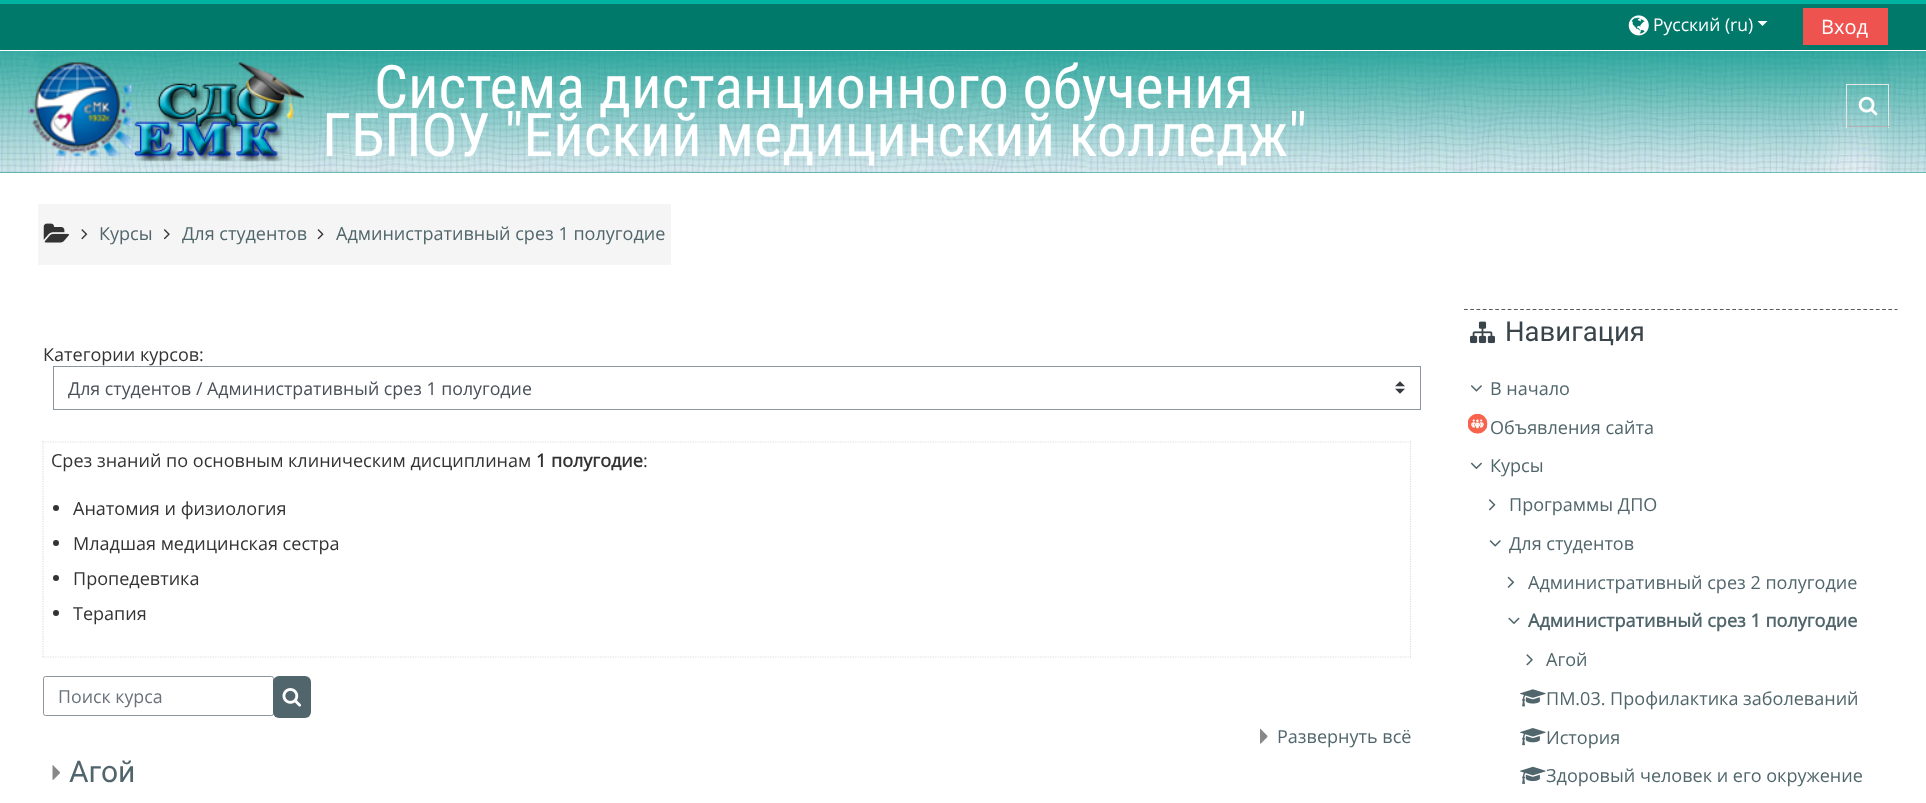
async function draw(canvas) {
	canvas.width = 1926;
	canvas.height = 803;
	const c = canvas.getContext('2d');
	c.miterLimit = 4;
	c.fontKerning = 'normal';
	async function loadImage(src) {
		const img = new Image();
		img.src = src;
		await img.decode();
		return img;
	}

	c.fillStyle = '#fff';
	c.fillRect(0, 0, 1926, 803);
	c.fillStyle = '#00b3a1';
	c.fillRect(0, 0, 1926, 4);
	c.fillStyle = '#009688';
	c.fillRect(0, 172, 1926, 1);
	c.drawImage(await loadImage('img1.png'), 0, 51, 1926, 122);
	c.fillStyle = '#00796b';
	c.fillRect(0, 4, 1926, 46);
	c.drawImage(await loadImage('img2.png'), 1628, 15, 21, 21);
	c.font = '17.5px Open Sans';
	c.fillStyle = '#fff';
	c.fillText('Русский (ru)', 1653, 31);
	c.beginPath();
	c.moveTo(1757.5, 21);
	c.lineTo(1767.5, 21);
	c.lineTo(1762.5, 26);
	c.closePath();
	c.fill();
	c.fillStyle = '#ef5350';
	c.fillRect(1803, 8, 85, 37);
	c.font = '20px Open Sans';
	c.fillStyle = '#fff';
	c.fillText('Вход', 1821, 34);
	c.drawImage(await loadImage('img3.png'), 28, 62, 276, 100);
	c.font = '60px Roboto Condensed';
	c.fillText('Система дистанционного обучения', 374, 108);
	c.fillText('ГБПОУ "Ейский медицинский колледж"', 322, 156);
	for (const [x, y, w, h, color] of [
		[1846, 84, 43, 1, '#e6e6e6'],
		[1888, 84, 1, 44, '#e6e6e6'],
		[1846, 126, 43, 1, '#b3b3b3'],
		[1846, 84, 1, 44, '#e6e6e6'],
	]) {
		c.fillStyle = color;
		c.fillRect(x, y, w, h);
	}
	c.drawImage(await loadImage('img4.png'), 1858, 96, 20, 20);
	c.fillStyle = '#f5f5f5';
	c.fillRect(38, 204, 633, 61);
	c.drawImage(await loadImage('img5.png'), 43, 223, 26, 20);
	c.drawImage(await loadImage('img6.png'), 81, 229, 7, 11);
	c.font = '18.05px Open Sans';
	c.fillStyle = '#51666c';
	c.fillText('Курсы', 99, 240);
	c.drawImage(await loadImage('img7.png'), 163, 229, 7, 11);
	c.fillText('Для студентов', 182, 240);
	c.drawImage(await loadImage('img8.png'), 317, 229, 7, 11);
	c.fillText('Административный срез 1 полугодие', 336, 240);
	c.fillStyle = '#333';
	c.fillText('Категории курсов:', 43, 361);
	c.drawImage(await loadImage('img9.png'), 1395, 381, 10, 13);
	c.strokeStyle = '#8f959e';
	c.strokeRect(53.5, 366.5, 1367, 43);
	c.font = '17.8px Open Sans';
	c.fillStyle = '#495057';
	c.fillText('Для студентов / Административный срез 1 полугодие', 68, 395);
	c.beginPath();
	c.moveTo(42.5, 442);
	c.lineTo(1411, 442);
	c.strokeStyle = '#ddd';
	c.lineWidth = 1.2;
	c.setLineDash([1.25, 1.25]);
	c.stroke();
	c.beginPath();
	c.moveTo(1410.5, 441);
	c.lineTo(1410.5, 657.5);
	c.stroke();
	c.beginPath();
	c.moveTo(42.5, 657);
	c.lineTo(1411, 657);
	c.stroke();
	c.beginPath();
	c.moveTo(43, 441);
	c.lineTo(43, 657.5);
	c.stroke();
	c.font = '18.05px Open Sans';
	c.fillStyle = '#333';
	c.fillText('Срез знаний по основным клиническим дисциплинам', 51, 467);
	c.font = 'bold 18.05px Open Sans';
	c.fillText('1 полугодие', 536, 467);
	c.font = '18.05px Open Sans';
	c.fillText(':', 643, 467);
	c.beginPath();
	c.arc(56, 508, 3, 0, 2 * Math.PI);
	c.fill();
	c.fillText('Анатомия и физиология', 73, 515);
	c.beginPath();
	c.arc(56, 543, 3, 0, 2 * Math.PI);
	c.fill();
	c.fillText('Младшая медицинская сестра', 73, 550);
	c.beginPath();
	c.arc(56, 578, 3, 0, 2 * Math.PI);
	c.fill();
	c.fillText('Пропедевтика', 73, 585);
	c.beginPath();
	c.arc(56, 613, 3, 0, 2 * Math.PI);
	c.fill();
	c.fillText('Терапия', 73, 620);
	c.beginPath();
	c.roundRect(43.5, 676.5, 230, 39, 2);
	c.strokeStyle = '#8f959e';
	c.lineWidth = 1;
	c.setLineDash([]);
	c.stroke();
	c.font = '17.8px Open Sans';
	c.fillStyle = '#6a737b';
	c.fillText('Поиск курса', 58, 703);
	c.fillStyle = '#51666c';
	c.beginPath();
	c.roundRect(273, 676, 38, 42, 6);
	c.fill();
	c.drawImage(await loadImage('img10.png'), 282, 688, 20, 19);
	c.drawImage(await loadImage('img11.png'), 1260, 728, 8, 16);
	c.font = '18.05px Open Sans';
	c.fillText('Развернуть всё', 1277, 743);
	c.drawImage(await loadImage('img12.png'), 52, 765, 8, 15);
	c.font = '30px Roboto';
	c.fillText('Агой', 69, 782);
	c.beginPath();
	c.moveTo(1464, 309.5);
	c.lineTo(1897.5, 309.5);
	c.strokeStyle = '#59585d';
	c.lineWidth = 1.2;
	c.setLineDash([3.75, 2.49]);
	c.stroke();
	c.drawImage(await loadImage('img13.png'), 1470, 321, 25, 23);
	c.font = '27.5px Roboto';
	c.fillStyle = '#3a454b';
	c.fillText('Навигация', 1505, 341);
	c.drawImage(await loadImage('img14.png'), 1470, 385, 12, 7);
	c.font = '18.05px Open Sans';
	c.fillStyle = '#51666c';
	c.fillText('В начало', 1490, 395);
	c.drawImage(await loadImage('img15.png'), 1468, 414, 20, 20);
	c.fillText('Объявления сайта', 1490, 434);
	c.drawImage(await loadImage('img16.png'), 1470, 462, 12, 8);
	c.fillText('Курсы', 1490, 472);
	c.drawImage(await loadImage('img17.png'), 1488, 499, 8, 12);
	c.fillText('Программы ДПО', 1509, 511);
	c.drawImage(await loadImage('img18.png'), 1489, 540, 12, 7);
	c.fillText('Для студентов', 1509, 550);
	c.drawImage(await loadImage('img19.png'), 1507, 576, 8, 12);
	c.fillText('Административный срез 2 полугодие', 1528, 589);
	c.drawImage(await loadImage('img20.png'), 1508, 617, 12, 8);
	c.font = 'bold 18.05px Open Sans';
	c.fillText('Административный срез 1 полугодие', 1528, 627);
	c.drawImage(await loadImage('img21.png'), 1526, 654, 7, 12);
	c.font = '18.05px Open Sans';
	c.fillText('Агой', 1546, 666);
	c.drawImage(await loadImage('img22.png'), 1520, 689, 26, 18);
	c.fillText('ПМ.03. Профилактика заболеваний', 1546, 705);
	c.drawImage(await loadImage('img23.png'), 1520, 728, 26, 18);
	c.fillText('История', 1546, 744);
	c.drawImage(await loadImage('img24.png'), 1520, 766, 26, 18);
	c.fillText('Здоровый человек и его окружение', 1546, 782);
}

draw(document.querySelector('canvas'));
